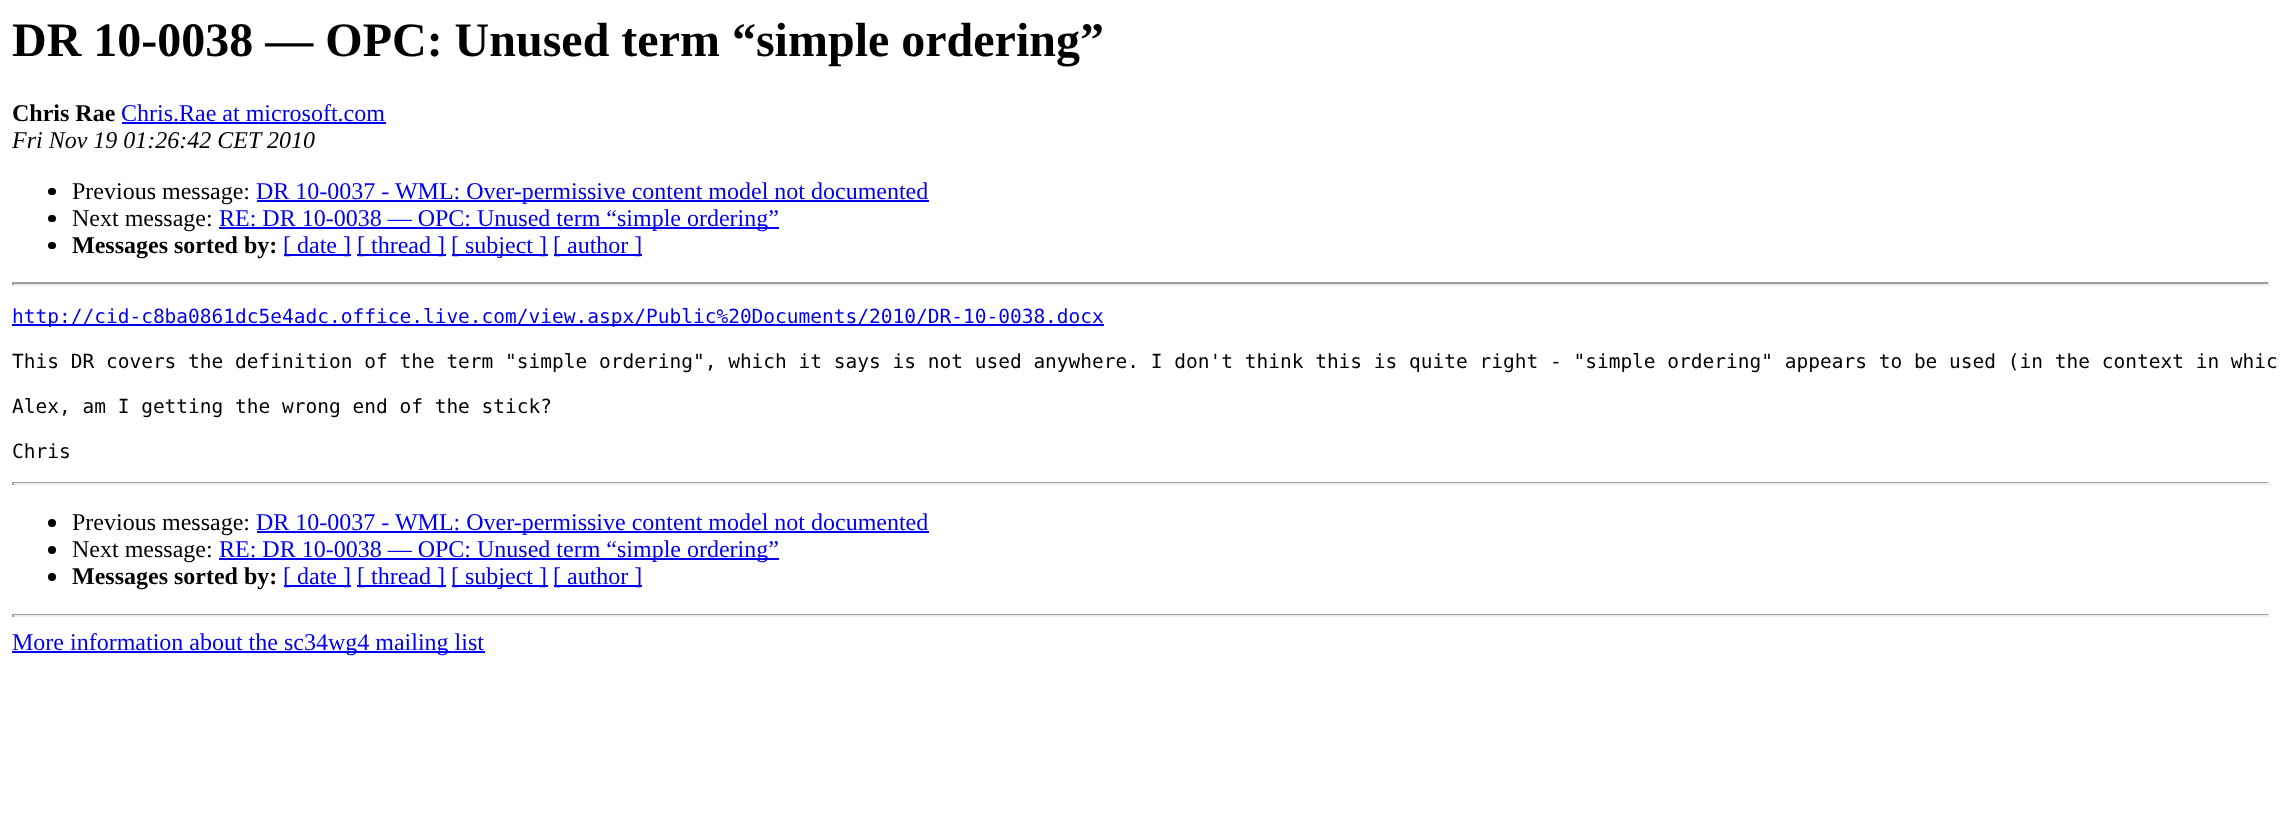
async function draw(canvas) {
	canvas.width = 2281;
	canvas.height = 830;
	const c = canvas.getContext('2d');
	c.miterLimit = 4;
	c.fontKerning = 'normal';

	c.fillStyle = '#fff';
	c.fillRect(0, 0, 2281, 830);
	c.font = 'bold 48px Liberation Serif';
	c.fillStyle = '#000';
	c.fillText('DR 10-0038 — OPC: Unused term “simple ordering”', 12, 56);
	c.font = 'bold 24px Liberation Serif';
	c.fillText('Chris Rae', 12, 121);
	c.font = '24px Liberation Serif';
	c.fillStyle = '#00e';
	c.fillText('Chris.Rae at microsoft.com', 121, 121);
	c.fillRect(122, 122, 264, 2);
	c.font = 'italic 24px Liberation Serif';
	c.fillStyle = '#000';
	c.fillText('Fri Nov 19 01:26:42 CET 2010', 12, 148);
	c.beginPath();
	c.roundRect(48, 188, 8, 7, 3.5);
	c.fill();
	c.font = '24px Liberation Serif';
	c.fillText('Previous message:', 72, 199);
	c.fillStyle = '#00e';
	c.fillRect(257, 200, 672, 2);
	c.fillText('DR 10-0037 - WML: Over-permissive content model not documented', 256, 199);
	c.fillStyle = '#000';
	c.beginPath();
	c.roundRect(48, 215, 8, 7, 3.5);
	c.fill();
	c.fillText('Next message:', 72, 226);
	c.fillStyle = '#00e';
	c.fillRect(219, 227, 560, 2);
	c.fillText('RE: DR 10-0038 — OPC: Unused term “simple ordering”', 219, 226);
	c.fillStyle = '#000';
	c.beginPath();
	c.roundRect(48, 242, 8, 7, 3.5);
	c.fill();
	c.font = 'bold 24px Liberation Serif';
	c.fillText('Messages sorted by:', 72, 253);
	c.fillStyle = '#00e';
	c.fillRect(284, 254, 67, 2);
	c.font = '24px Liberation Serif';
	c.fillText('[ date ]', 283, 253);
	c.fillRect(357, 254, 89, 2);
	c.fillText('[ thread ]', 357, 253);
	c.fillRect(452, 254, 96, 2);
	c.fillText('[ subject ]', 451, 253);
	c.fillRect(554, 254, 88, 2);
	c.fillText('[ author ]', 553, 253);
	for (const [x, y, w, h, color] of [
		[12, 282, 2258, 2, '#9f9f9f'],
		[2268, 282, 2, 3, '#eee'],
		[12, 284, 2258, 2, '#eee'],
		[12, 282, 2, 3, '#9f9f9f'],
		[12, 324, 1092, 2, '#00e'],
	]) {
		c.fillStyle = color;
		c.fillRect(x, y, w, h);
	}
	c.font = '19.5px DejaVu Sans Mono';
	c.fillText('http://cid-c8ba0861dc5e4adc.office.live.com/view.aspx/Public%20Documents/2010/DR-10-0038.docx', 12, 323);
	c.fillStyle = '#000';
	for (const [text, x, y] of [
		['This DR covers the definition of the term "simple ordering", which it says is not used anywhere. I don\'t think this is quite right - "simple ordering" appears to be used (in the context in whic', 12, 368],
		['Alex, am I getting the wrong end of the stick?', 12, 413],
		['Chris', 12, 458],
	]) {
		c.fillText(text, x, y);
	}
	for (const [x, y, w, h, color] of [
		[12, 482, 2258, 1, '#9f9f9f'],
		[2268, 482, 2, 3, '#eee'],
		[12, 483, 2258, 2, '#eee'],
		[12, 482, 2, 3, '#9f9f9f'],
	]) {
		c.fillStyle = color;
		c.fillRect(x, y, w, h);
	}
	c.fillStyle = '#000';
	c.beginPath();
	c.arc(52, 523, 4, 0, 2 * Math.PI);
	c.fill();
	c.font = '24px Liberation Serif';
	c.fillText('Previous message:', 72, 530);
	c.fillStyle = '#00e';
	c.fillRect(257, 531, 672, 2);
	c.fillText('DR 10-0037 - WML: Over-permissive content model not documented', 256, 530);
	c.fillStyle = '#000';
	c.beginPath();
	c.arc(52, 550, 4, 0, 2 * Math.PI);
	c.fill();
	c.fillText('Next message:', 72, 557);
	c.fillStyle = '#00e';
	c.fillRect(219, 558, 560, 2);
	c.fillText('RE: DR 10-0038 — OPC: Unused term “simple ordering”', 219, 557);
	c.fillStyle = '#000';
	c.beginPath();
	c.arc(52, 577, 4, 0, 2 * Math.PI);
	c.fill();
	c.font = 'bold 24px Liberation Serif';
	c.fillText('Messages sorted by:', 72, 584);
	c.fillStyle = '#00e';
	c.fillRect(284, 585, 67, 2);
	c.font = '24px Liberation Serif';
	c.fillText('[ date ]', 283, 584);
	c.fillRect(357, 585, 89, 2);
	c.fillText('[ thread ]', 357, 584);
	c.fillRect(452, 585, 96, 2);
	c.fillText('[ subject ]', 451, 584);
	c.fillRect(554, 585, 88, 2);
	c.fillText('[ author ]', 553, 584);
	for (const [x, y, w, h, color] of [
		[12, 614, 2258, 1, '#9f9f9f'],
		[2268, 614, 2, 3, '#eee'],
		[12, 615, 2258, 2, '#eee'],
		[12, 614, 2, 3, '#9f9f9f'],
		[12, 651, 473, 2, '#00e'],
	]) {
		c.fillStyle = color;
		c.fillRect(x, y, w, h);
	}
	c.fillText('More information about the sc34wg4 mailing list', 12, 650);
}

draw(document.querySelector('canvas'));
